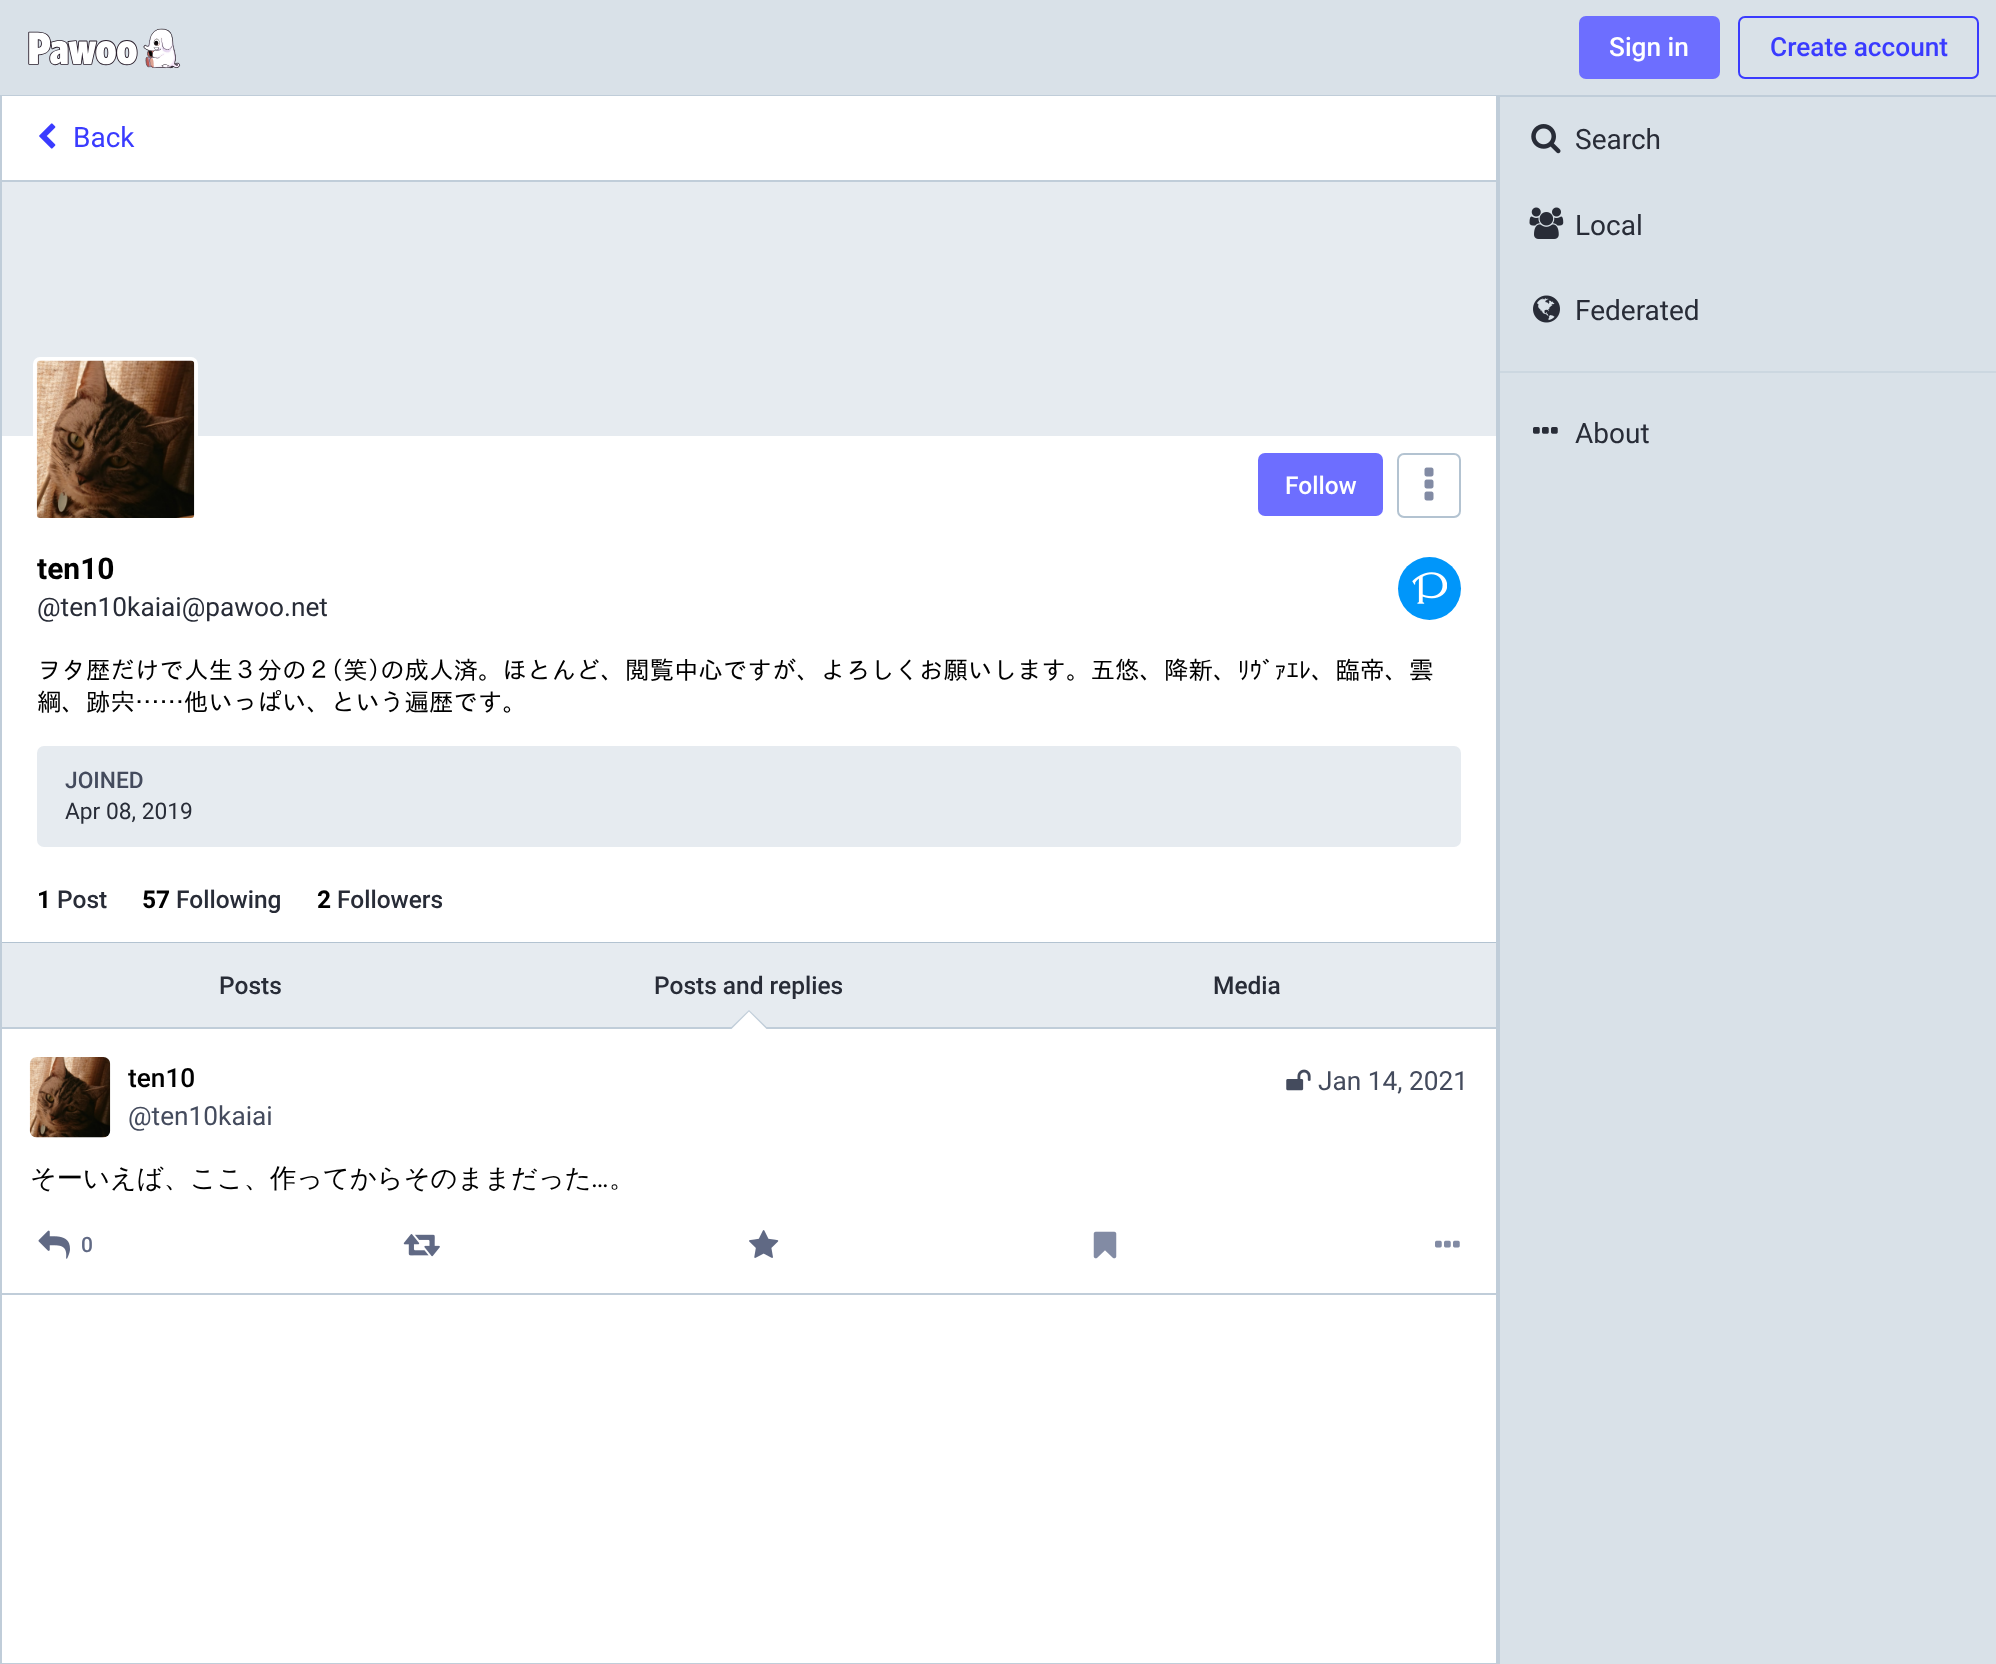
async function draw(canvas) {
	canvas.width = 1996;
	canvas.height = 1664;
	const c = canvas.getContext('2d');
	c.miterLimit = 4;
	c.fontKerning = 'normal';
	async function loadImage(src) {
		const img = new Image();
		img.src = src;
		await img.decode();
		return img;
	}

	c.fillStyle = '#fff';
	c.fillRect(0, 0, 1996, 1664);
	for (const [x, y, w, h, color] of [
		[0, 0, 1996, 95, '#d9e1e8'],
		[1498, 96, 2, 1568, '#c0cdd9'],
		[0, 95, 1996, 2, '#c0cdd9'],
	]) {
		c.fillStyle = color;
		c.fillRect(x, y, w, h);
	}
	c.drawImage(await loadImage('img1.png'), 28, 28, 153, 41);
	c.fillStyle = '#6d6eff';
	c.beginPath();
	c.roundRect(1579, 16, 141, 63, 7);
	c.fill();
	c.font = '500 26.25px Roboto';
	c.fillStyle = '#fff';
	c.fillText('Sign in', 1609, 56);
	c.beginPath();
	c.roundRect(1739, 17, 239, 61, 6);
	c.strokeStyle = '#3a3bff';
	c.lineWidth = 2;
	c.stroke();
	c.fillStyle = '#3a3bff';
	c.fillText('Create account', 1770, 56);
	for (const [x, y, w, h, color] of [
		[2, 96, 1494, 1, '#fff'],
		[1496, 96, 2, 86, '#c0cdd9'],
		[0, 180, 1498, 2, '#c0cdd9'],
		[0, 96, 2, 86, '#c0cdd9'],
	]) {
		c.fillStyle = color;
		c.fillRect(x, y, w, h);
	}
	c.drawImage(await loadImage('img2.png'), 39, 123, 17, 26);
	c.font = '28px Roboto';
	c.fillStyle = '#3a3bff';
	c.fillText('Back', 73, 147);
	for (const [x, y, w, h, color] of [
		[1496, 182, 2, 1482, '#c0cdd9'],
		[0, 1663, 1498, 1, '#c0cdd9'],
		[0, 182, 2, 1482, '#c0cdd9'],
		[2, 182, 1494, 254, '#e6ebf0'],
		[2, 942, 1494, 1, '#b3c3d1'],
	]) {
		c.fillStyle = color;
		c.fillRect(x, y, w, h);
	}
	c.beginPath();
	c.roundRect(35, 359, 161, 161, 5);
	c.strokeStyle = '#fff';
	c.lineWidth = 4;
	c.stroke();
	c.drawImage(await loadImage('img3.png'), 36, 360, 159, 158);
	c.fillStyle = '#6d6eff';
	c.beginPath();
	c.roundRect(1258, 453, 125, 63, 7);
	c.fill();
	c.font = '500 24.5px Roboto';
	c.fillStyle = '#fff';
	c.fillText('Follow', 1285, 494);
	c.beginPath();
	c.roundRect(1398, 454, 62, 63, 6);
	c.strokeStyle = '#b3c3d1';
	c.lineWidth = 2;
	c.stroke();
	c.drawImage(await loadImage('img4.png'), 1424, 467, 10, 34);
	c.save();
	c.beginPath();
	c.rect(37, 550, 290, 77);
	c.clip();
	c.font = 'bold 30px Roboto';
	c.fillStyle = '#000';
	c.fillText('ten10', 37, 579);
	c.restore();
	c.font = '26.25px Roboto';
	c.fillStyle = '#282c37';
	c.fillText('@ten10kaiai@pawoo.net', 37, 616);
	c.fillStyle = '#0096fa';
	c.beginPath();
	c.arc(1429.5, 588.5, 31.5, 0, 2 * Math.PI);
	c.fill();
	c.drawImage(await loadImage('img5.png'), 1412, 572, 35, 32);
	c.font = '24.5px IPAGothic';
	c.fillStyle = '#000';
	c.fillText('ヲタ歴だけで人生３分の２(笑)の成人済。ほとんど、閲覧中心ですが、よろしくお願いします。五悠、降新、ﾘｳﾞｧｴﾚ、臨帝、雲', 37, 679);
	c.fillText('綱、跡宍……他いっぱい、という遍歴です。', 37, 711);
	c.fillStyle = '#e6ebf0';
	c.beginPath();
	c.roundRect(37, 746, 1424, 101, 7);
	c.fill();
	c.font = '500 22.75px Roboto';
	c.fillStyle = '#444b5d';
	c.fillText('JOINED', 65, 788);
	c.font = '22.75px Roboto';
	c.fillStyle = '#282c37';
	c.fillText('Apr 08, 2019', 65, 819);
	c.font = 'bold 24.5px Roboto';
	c.fillStyle = '#000';
	c.fillText('1', 37, 908);
	c.font = '500 24.5px Roboto';
	c.fillStyle = '#282c37';
	c.fillText('Post', 57, 908);
	c.font = 'bold 24.5px Roboto';
	c.fillStyle = '#000';
	c.fillText('57', 142, 908);
	c.font = '500 24.5px Roboto';
	c.fillStyle = '#282c37';
	c.fillText('Following', 176, 908);
	c.font = 'bold 24.5px Roboto';
	c.fillStyle = '#000';
	c.fillText('2', 317, 908);
	c.font = '500 24.5px Roboto';
	c.fillStyle = '#282c37';
	c.fillText('Followers', 337, 908);
	c.fillStyle = '#e6ebf0';
	c.fillRect(2, 943, 1494, 84);
	c.fillStyle = '#c0cdd9';
	c.fillRect(2, 1027, 1494, 2);
	c.fillStyle = '#282c37';
	c.fillText('Posts', 219, 994);
	c.fillText('Posts and replies', 654, 994);
	c.fillStyle = '#c0cdd9';
	c.beginPath();
	c.moveTo(766.5, 1027);
	c.lineTo(731.5, 1027);
	c.lineTo(749, 1010);
	c.closePath();
	c.fill();
	c.fillStyle = '#fff';
	c.beginPath();
	c.moveTo(766.5, 1029);
	c.lineTo(731.5, 1029);
	c.lineTo(749, 1011.5);
	c.closePath();
	c.fill();
	c.fillStyle = '#282c37';
	c.fillText('Media', 1213, 994);
	c.fillStyle = '#c0cdd9';
	c.fillRect(2, 1293, 1494, 2);
	c.drawImage(await loadImage('img6.png'), 29, 1057, 82, 81);
	c.font = '500 26.25px Roboto';
	c.fillStyle = '#000';
	c.fillText('ten10', 128, 1087);
	c.font = '26.25px Roboto';
	c.fillStyle = '#444b5d';
	c.fillText('@ten10kaiai', 128, 1125);
	c.drawImage(await loadImage('img7.png'), 1286, 1069, 25, 22);
	c.fillText('Jan 14, 2021', 1318, 1090);
	c.font = '500 26.25px WenQuanYi Zen Hei';
	c.fillStyle = '#000';
	c.fillText('そーいえば、ここ、作ってからそのままだった', 30, 1187);
	c.font = '26.25px Roboto';
	c.fillText('…', 591, 1187);
	c.font = '500 26.25px WenQuanYi Zen Hei';
	c.fillText('。', 609, 1187);
	c.drawImage(await loadImage('img8.png'), 38, 1230, 32, 29);
	c.font = '500 21px Roboto';
	c.fillStyle = '#606984';
	c.fillText('0', 81, 1252);
	c.drawImage(await loadImage('img9.png'), 403, 1234, 37, 23);
	c.drawImage(await loadImage('img10.png'), 749, 1230, 30, 28);
	c.drawImage(await loadImage('img11.png'), 1093, 1231, 24, 28);
	c.drawImage(await loadImage('img12.png'), 1435, 1240, 25, 8);
	c.fillStyle = '#d9e1e8';
	c.fillRect(1500, 97, 496, 1567);
	c.drawImage(await loadImage('img13.png'), 1531, 124, 30, 30);
	c.font = '28px Roboto';
	c.fillStyle = '#282c37';
	c.fillText('Search', 1575, 149);
	c.drawImage(await loadImage('img14.png'), 1529, 207, 35, 32);
	c.fillText('Local', 1575, 235);
	c.drawImage(await loadImage('img15.png'), 1533, 295, 27, 28);
	c.fillText('Federated', 1575, 320);
	c.fillStyle = '#ccd7e0';
	c.fillRect(1500, 371, 496, 2);
	c.drawImage(await loadImage('img16.png'), 1533, 427, 25, 7);
	c.fillStyle = '#282c37';
	c.fillText('About', 1575, 443);
}

draw(document.querySelector('canvas'));
